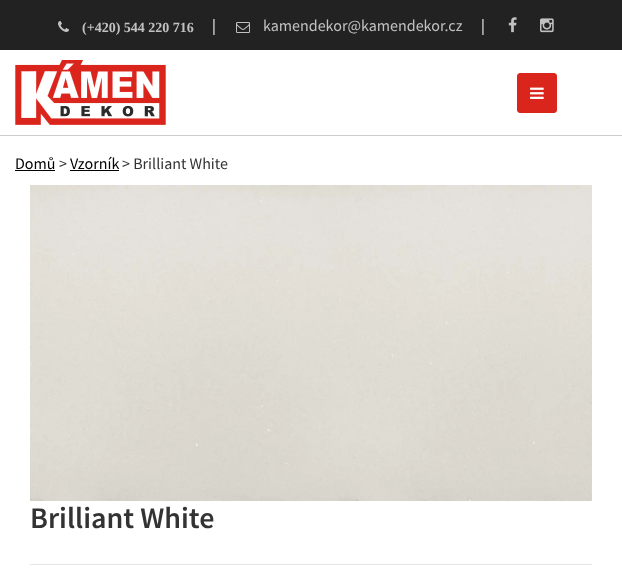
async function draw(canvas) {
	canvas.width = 622;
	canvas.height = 587;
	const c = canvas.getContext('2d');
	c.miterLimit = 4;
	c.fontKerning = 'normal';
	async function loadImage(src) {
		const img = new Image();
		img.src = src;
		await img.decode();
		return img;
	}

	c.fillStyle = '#fff';
	c.fillRect(0, 0, 622, 587);
	c.fillStyle = '#222';
	c.fillRect(0, 0, 622, 50);
	c.drawImage(await loadImage('img1.png'), 58, 21, 11, 11);
	c.font = 'bold 14px Liberation Serif';
	c.fillStyle = '#c1c1c1';
	c.fillText('(+420) 544 220 716', 82, 32);
	c.font = '16px Source Sans Pro';
	c.fillStyle = '#fff';
	c.fillText('|', 212, 31);
	c.drawImage(await loadImage('img2.png'), 236, 22, 14, 11);
	c.fillStyle = '#c1c1c1';
	c.fillText('kamendekor@kamendekor.cz', 263, 31);
	c.fillStyle = '#fff';
	c.fillText('|', 481, 31);
	c.drawImage(await loadImage('img3.png'), 508, 17, 9, 16);
	c.drawImage(await loadImage('img4.png'), 540, 18, 14, 15);
	c.fillStyle = '#ccc';
	c.fillRect(0, 135, 622, 1);
	c.drawImage(await loadImage('img5.png'), 15, 60, 151, 65);
	c.fillStyle = '#da251d';
	c.beginPath();
	c.roundRect(517.5, 73.5, 39, 39, 2.5);
	c.fill();
	c.strokeStyle = '#da251d';
	c.stroke();
	c.drawImage(await loadImage('img6.png'), 530, 87, 14, 12);
	c.fillStyle = '#000';
	c.fillText('Domů', 15, 169);
	c.fillRect(15, 170, 40, 1);
	c.fillStyle = '#333';
	c.fillText('>', 59, 169);
	c.fillStyle = '#000';
	c.fillText('Vzorník', 70, 169);
	c.fillRect(70, 170, 49, 1);
	c.fillStyle = '#333';
	c.fillText('> Brilliant White', 122, 169);
	c.drawImage(await loadImage('img7.png'), 30, 185, 562, 316);
	c.font = '600 30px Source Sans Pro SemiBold';
	c.fillText('Brilliant White', 30, 528);
	c.fillStyle = '#e6e6e6';
	c.fillRect(30, 564, 562, 1);
}

draw(document.querySelector('canvas'));
